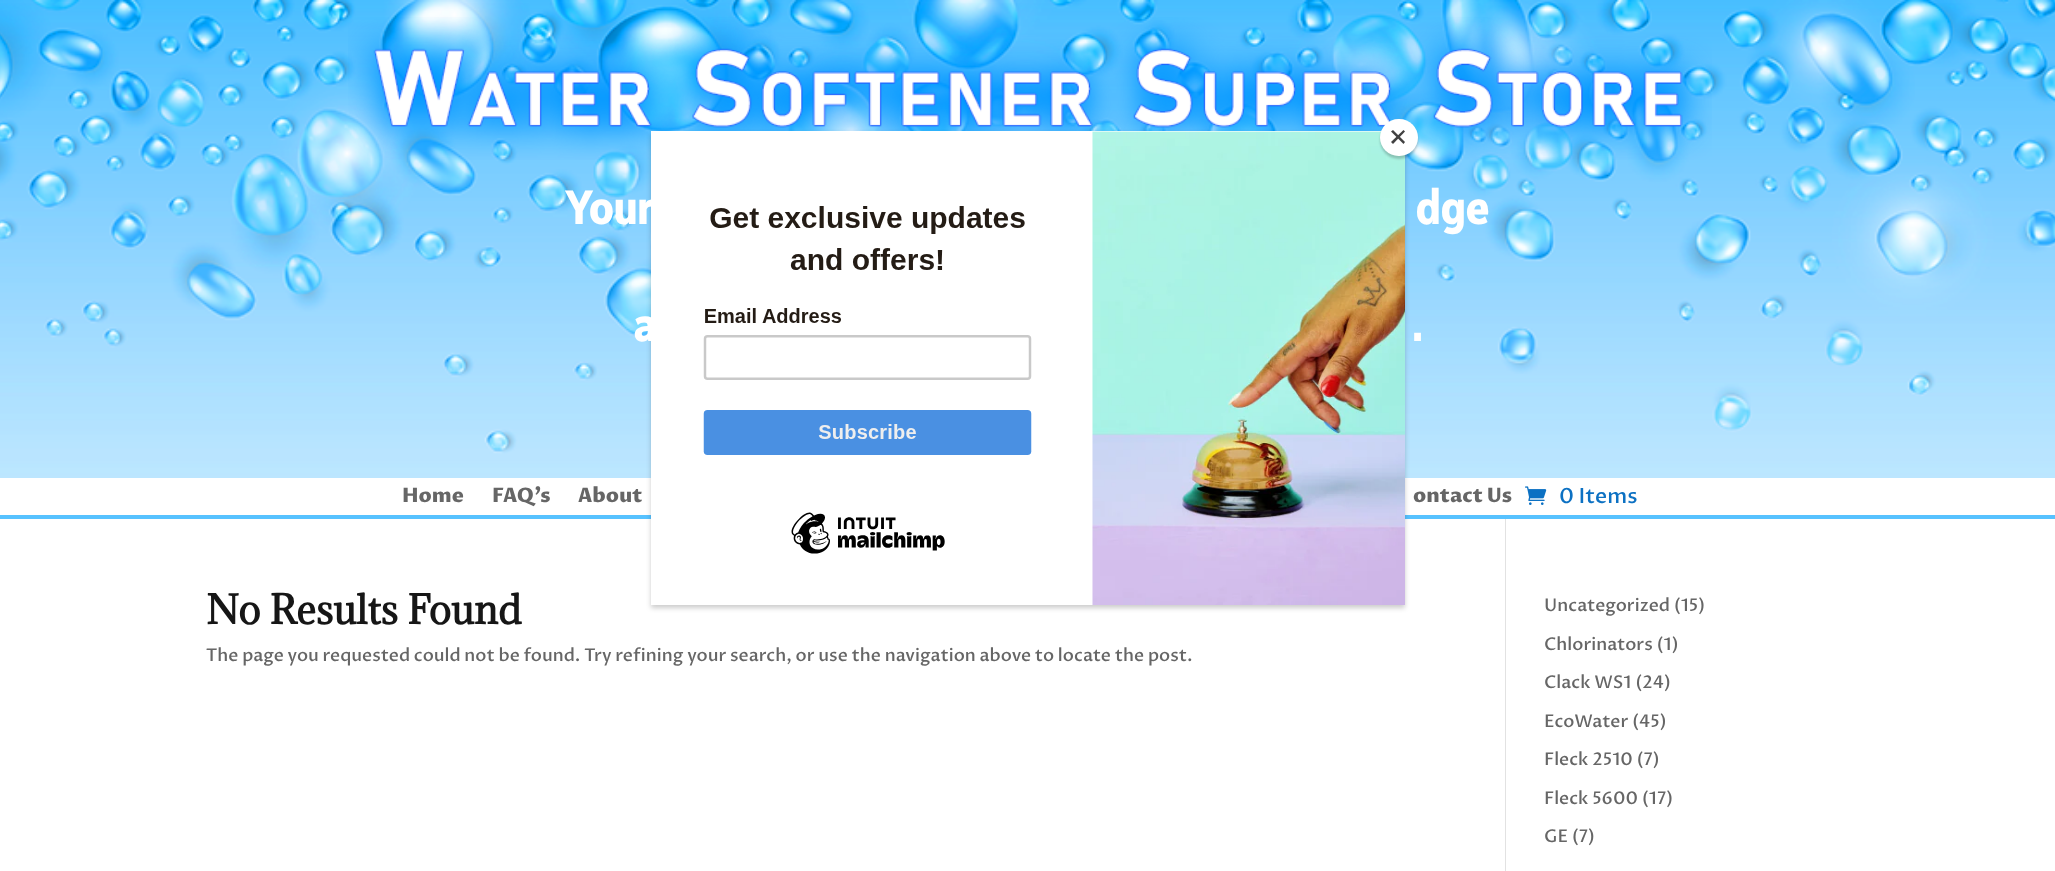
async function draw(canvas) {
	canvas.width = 2055;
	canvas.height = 871;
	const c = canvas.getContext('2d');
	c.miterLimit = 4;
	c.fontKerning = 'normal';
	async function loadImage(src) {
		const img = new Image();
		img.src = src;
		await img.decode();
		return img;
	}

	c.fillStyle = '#fff';
	c.fillRect(0, 0, 2055, 871);
	c.drawImage(await loadImage('img2.png'), 0, 0, 2055, 478);
	c.drawImage(await loadImage('img3.png'), 348, 17, 1364, 143);
	c.fillStyle = '#57c2ff';
	c.fillRect(0, 515, 2055, 4);
	c.fillStyle = '#00000033';
	c.filter = 'blur(2.5px)';
	c.beginPath();
	c.rect(651, 134, 754, 474);
	c.fill();
	c.filter = 'none';
	c.font = 'bold 46px Alatsi';
	c.fillStyle = '#fff';
	c.fillText('Your', 566, 224);
	c.fillText('a', 633, 341);
	c.drawImage(await loadImage('img1.png'), 651, 131, 754, 474);
	c.fillStyle = '#00000033';
	c.filter = 'blur(1px)';
	c.beginPath();
	c.roundRect(1380, 121, 38, 38, 19);
	c.fill();
	c.filter = 'none';
	c.fillStyle = '#fff';
	c.beginPath();
	c.roundRect(1380, 119, 38, 37, 18.5);
	c.fill();
	c.fillStyle = '#414141';
	c.beginPath();
	c.moveTo(1403.5, 130);
	c.lineTo(1405, 131.5);
	c.lineTo(1393, 144);
	c.lineTo(1391, 142);
	c.closePath();
	c.fill();
	c.beginPath();
	c.moveTo(1391, 131.5);
	c.lineTo(1393, 130);
	c.lineTo(1405, 142);
	c.lineTo(1403.5, 144);
	c.closePath();
	c.fill();
	c.fillStyle = '#fff';
	c.fillText('dge', 1415, 224);
	c.fillText('.', 1412, 341);
	c.font = '800 20px Proza Libre';
	c.fillStyle = '#666';
	for (const [text, x, y] of [
		['Home', 402, 502],
		['FAQ’s', 492, 502],
		['About', 578, 502],
		['ontact Us', 1413, 502],
	]) {
		c.fillText(text, x, y);
	}
	c.drawImage(await loadImage('img4.png'), 1525, 486, 22, 19);
	c.font = '500 21px Proza Libre';
	c.fillStyle = '#0c71c3';
	c.fillText('0 Items', 1559, 503);
	c.fillStyle = '#e2e2e2';
	c.fillRect(1505, 519, 1, 352);
	c.font = 'bold 37.5px Adamina';
	c.fillStyle = '#161616';
	c.fillText('No Results Found', 206, 624);
	c.font = '500 17.5px Proza Libre';
	c.fillStyle = '#666';
	for (const [text, x, y] of [
		['The page you requested could not be found. Try refining your search, or use the navigation above to locate the post.', 206, 661],
		['Uncategorized (15)', 1544, 611],
		['Chlorinators (1)', 1544, 650],
		['Clack WS1 (24)', 1544, 688],
		['EcoWater (45)', 1544, 727],
		['Fleck 2510 (7)', 1544, 765],
		['Fleck 5600 (17)', 1544, 804],
		['GE (7)', 1544, 842],
	]) {
		c.fillText(text, x, y);
	}
}

draw(document.querySelector('canvas'));
